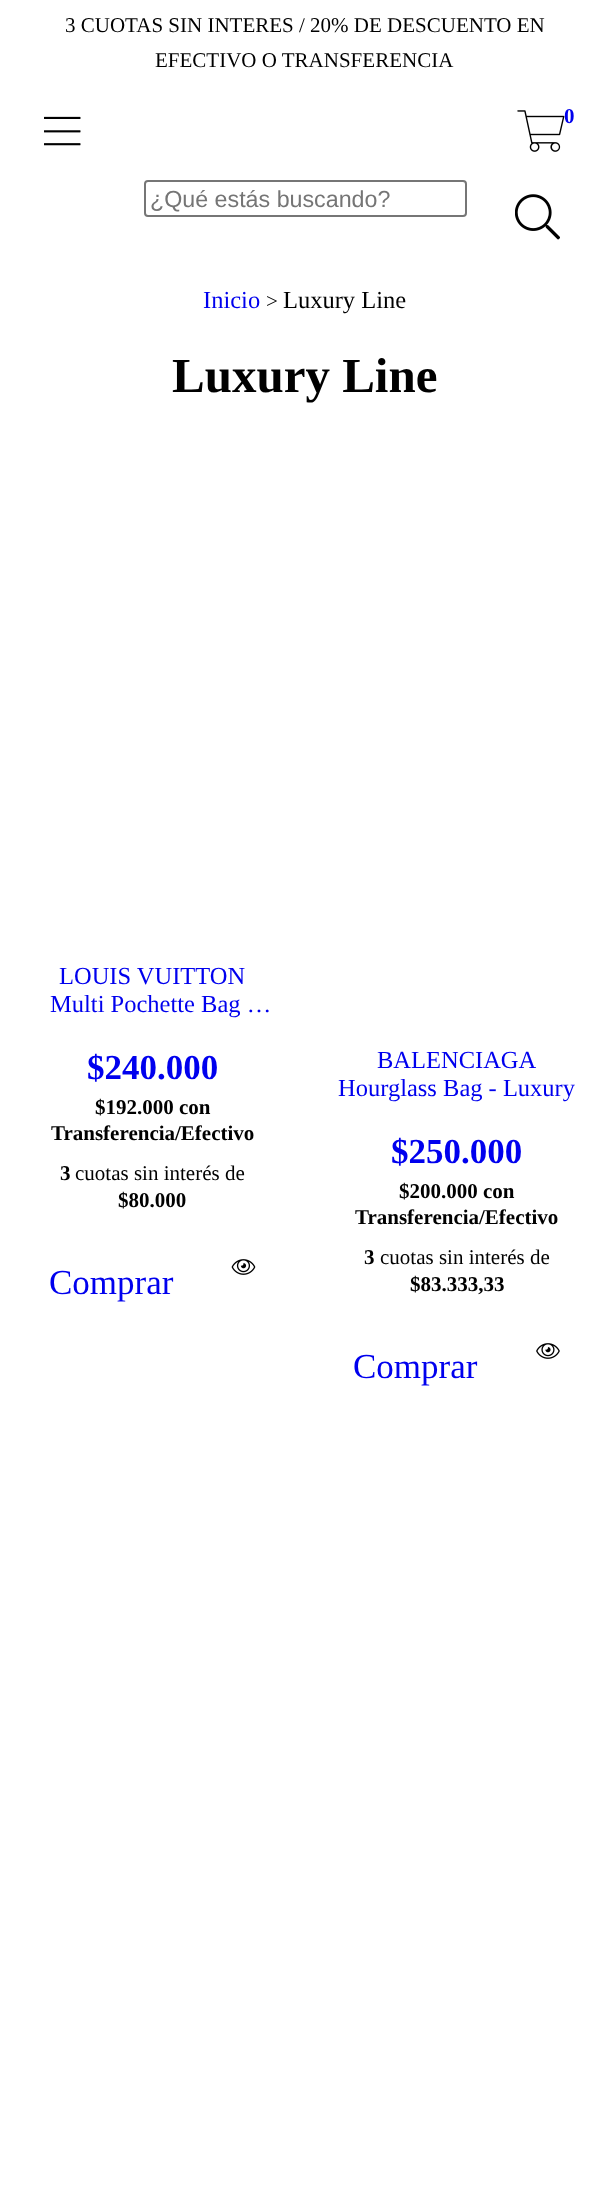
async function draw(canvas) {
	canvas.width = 609;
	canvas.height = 2192;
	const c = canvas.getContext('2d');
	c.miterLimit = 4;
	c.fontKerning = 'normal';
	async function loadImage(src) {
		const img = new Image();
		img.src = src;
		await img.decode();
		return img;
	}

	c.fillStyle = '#fff';
	c.fillRect(0, 0, 609, 2192);
	c.font = '21px Liberation Serif';
	c.fillStyle = '#000';
	c.fillText('3 CUOTAS SIN INTERES / 20% DE DESCUENTO EN', 65, 32);
	c.fillText('EFECTIVO O TRANSFERENCIA', 155, 67);
	c.drawImage(await loadImage('img1.png'), 44, 116, 37, 30);
	c.drawImage(await loadImage('img2.png'), 517, 110, 48, 42);
	c.font = 'bold 21px Liberation Serif';
	c.fillStyle = '#00e';
	c.fillText('0', 564, 123);
	c.beginPath();
	c.roundRect(145, 181, 321, 35, 3);
	c.strokeStyle = '#767676';
	c.lineWidth = 2;
	c.stroke();
	c.font = '23.25px Liberation Sans';
	c.fillStyle = '#757575';
	c.fillText('¿Qué estás buscando?', 150, 207);
	c.drawImage(await loadImage('img3.png'), 515, 194, 45, 46);
	c.font = '24.5px Liberation Serif';
	c.fillStyle = '#00e';
	c.fillText('Inicio', 203, 308);
	c.font = '21px Liberation Serif';
	c.fillStyle = '#000';
	c.fillText('>', 266, 308);
	c.font = '24.5px Liberation Serif';
	c.fillText('Luxury Line', 283, 308);
	c.font = 'bold 49px Liberation Serif';
	c.fillText('Luxury Line', 172, 392);
	c.font = '24.5px Liberation Serif';
	c.fillStyle = '#00e';
	c.fillText('LOUIS VUITTON', 59, 984);
	c.fillText('Multi Pochette Bag …', 50, 1012);
	c.font = 'bold 35px Liberation Serif';
	c.fillText('$240.000', 87, 1079);
	c.font = 'bold 21px Liberation Serif';
	c.fillStyle = '#000';
	for (const [text, x, y] of [
		['$192.000 con', 95, 1114],
		['Transferencia/Efectivo', 51, 1140],
		['3', 60, 1180],
	]) {
		c.fillText(text, x, y);
	}
	c.font = '21px Liberation Serif';
	c.fillText('cuotas sin interés de', 75, 1180);
	c.font = 'bold 21px Liberation Serif';
	c.fillText('$80.000', 118, 1207);
	c.drawImage(await loadImage('img4.png'), 231, 1259, 25, 16);
	c.font = '35px Liberation Serif';
	c.fillStyle = '#00e';
	c.fillText('Comprar', 49, 1294);
	c.font = '24.5px Liberation Serif';
	c.fillText('BALENCIAGA', 377, 1068);
	c.fillText('Hourglass Bag - Luxury', 338, 1096);
	c.font = 'bold 35px Liberation Serif';
	c.fillText('$250.000', 391, 1163);
	c.font = 'bold 21px Liberation Serif';
	c.fillStyle = '#000';
	for (const [text, x, y] of [
		['$200.000 con', 399, 1198],
		['Transferencia/Efectivo', 355, 1224],
		['3', 364, 1264],
	]) {
		c.fillText(text, x, y);
	}
	c.font = '21px Liberation Serif';
	c.fillText('cuotas sin interés de', 380, 1264);
	c.font = 'bold 21px Liberation Serif';
	c.fillText('$83.333,33', 410, 1291);
	c.drawImage(await loadImage('img5.png'), 536, 1343, 24, 16);
	c.font = '35px Liberation Serif';
	c.fillStyle = '#00e';
	c.fillText('Comprar', 353, 1378);
}

draw(document.querySelector('canvas'));
